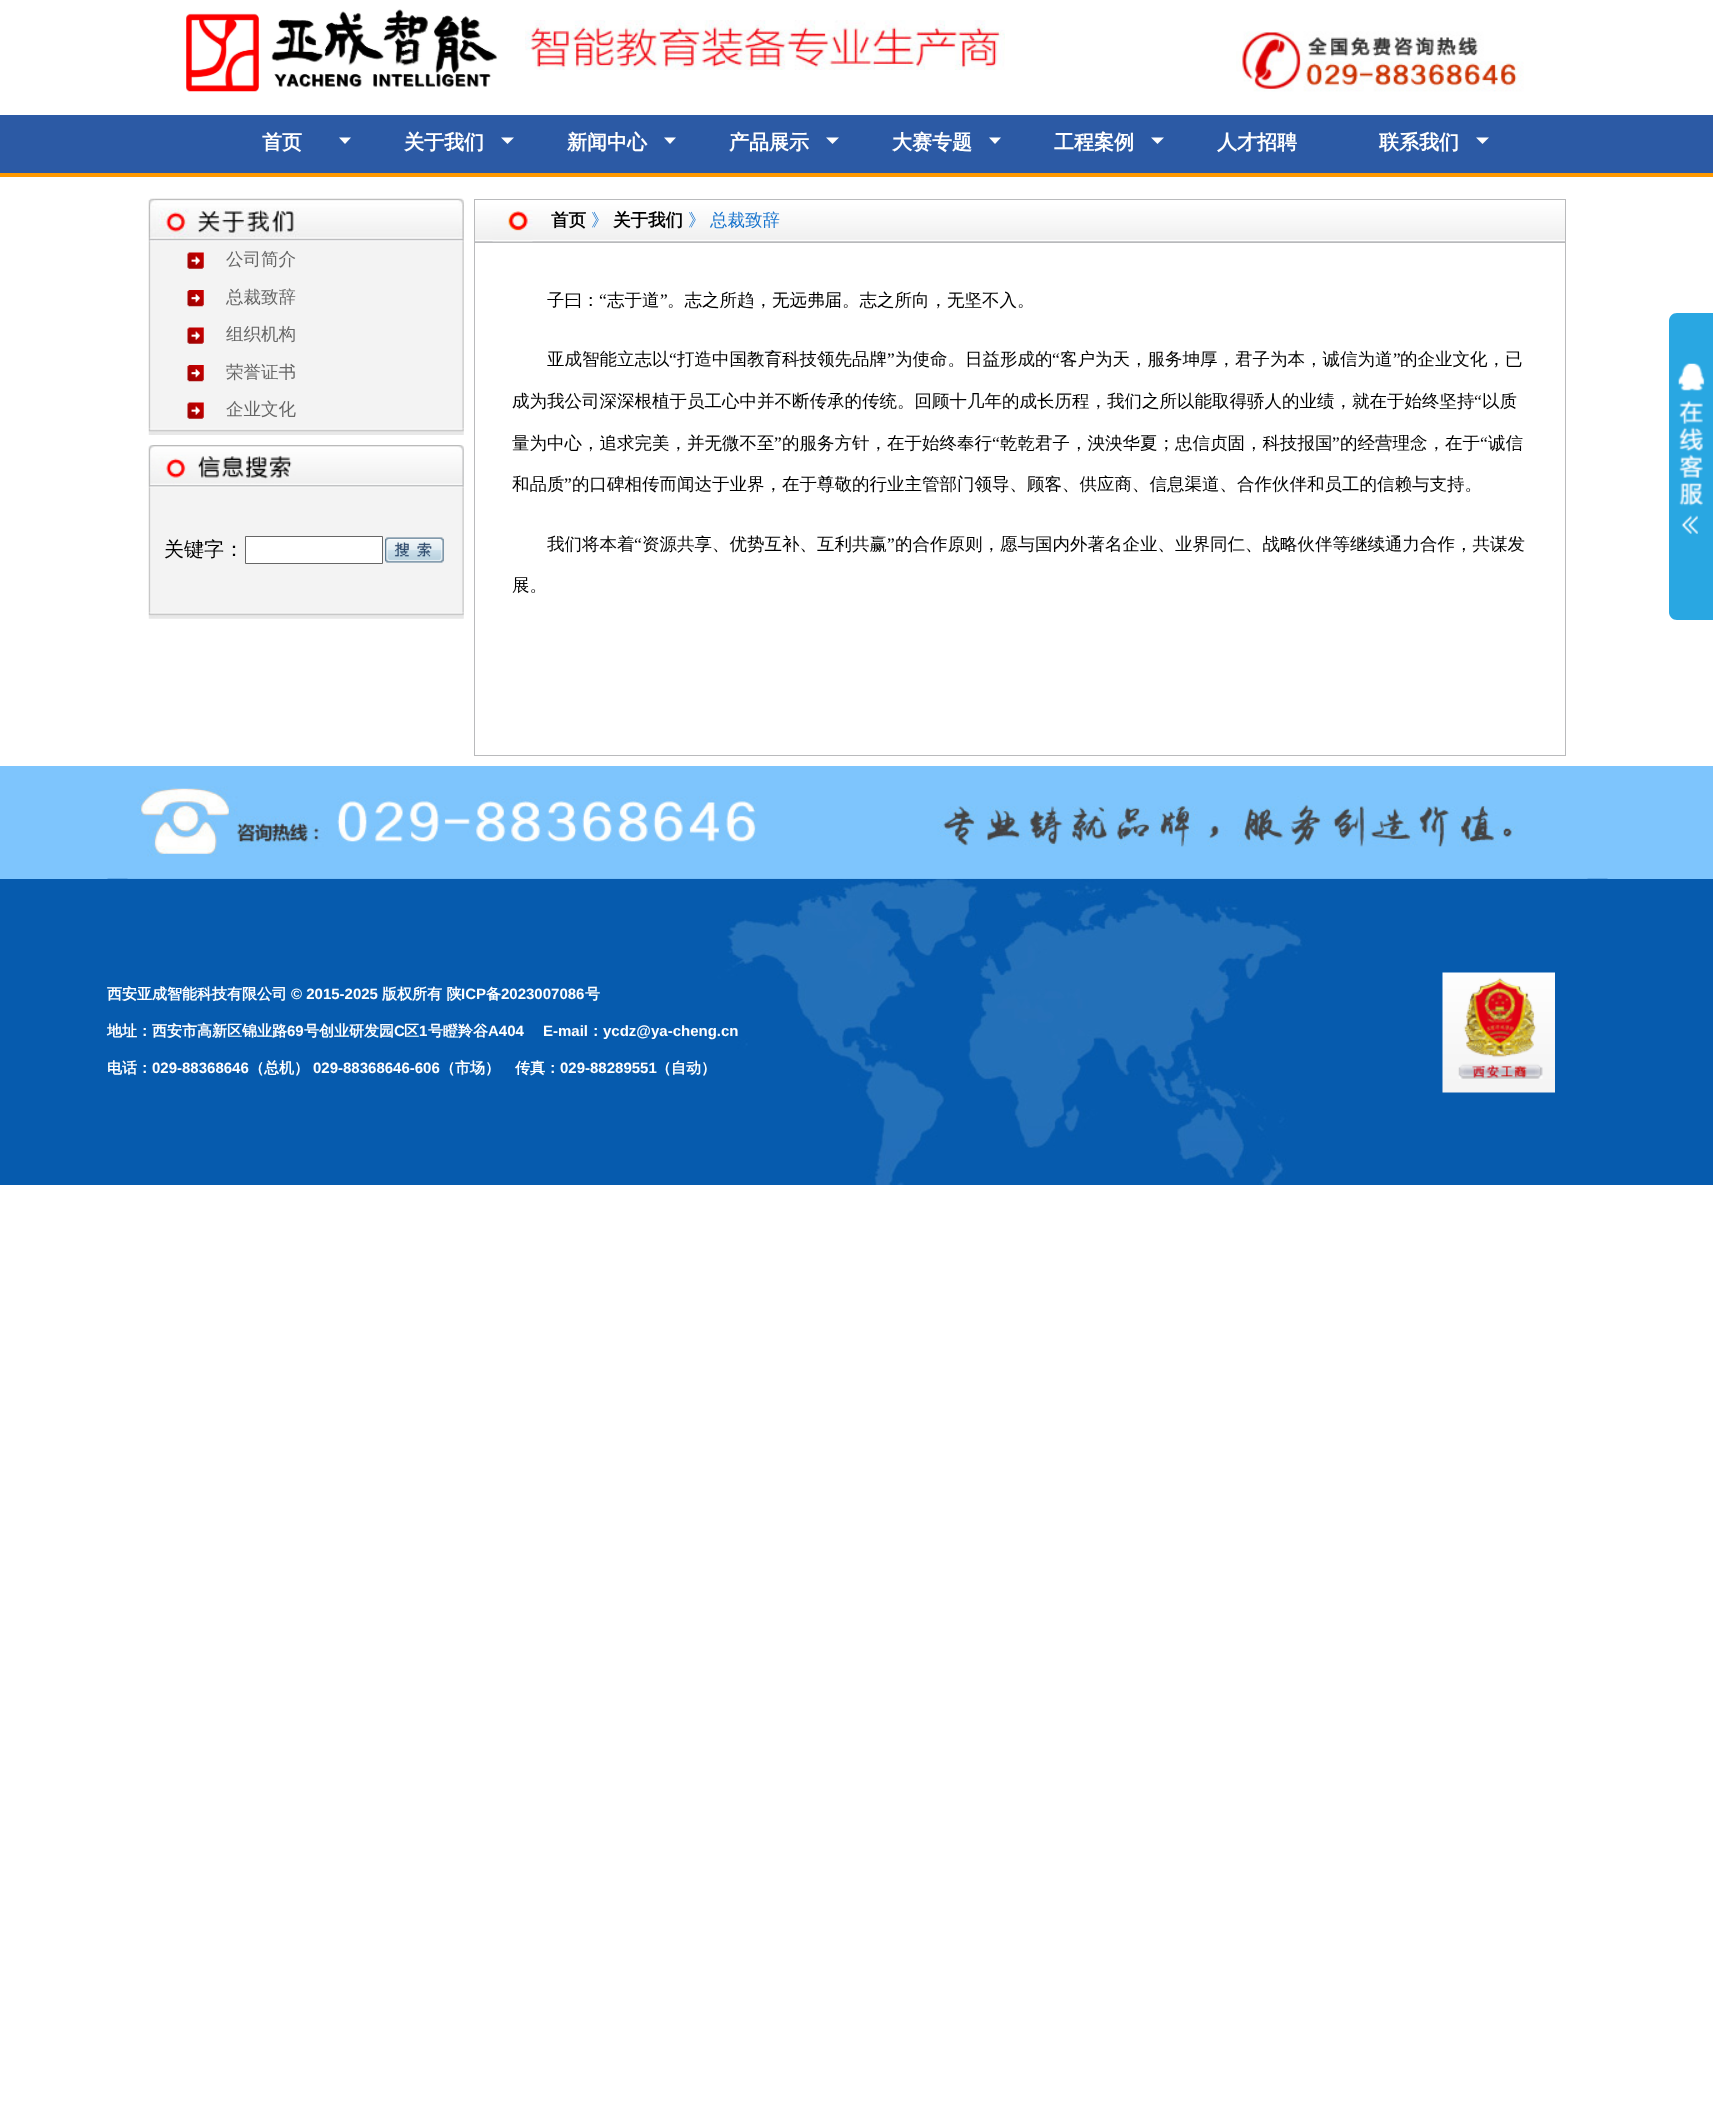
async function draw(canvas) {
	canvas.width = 1713;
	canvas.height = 2108;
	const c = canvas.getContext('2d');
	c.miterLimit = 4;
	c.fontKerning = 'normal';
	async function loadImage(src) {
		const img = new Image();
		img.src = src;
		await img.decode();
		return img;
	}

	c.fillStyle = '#fff';
	c.fillRect(0, 0, 1713, 2108);
	c.drawImage(await loadImage('img1.png'), 186, 9, 312, 83);
	c.drawImage(await loadImage('img2.png'), 525, 20, 480, 50);
	c.drawImage(await loadImage('img3.png'), 1236, 31, 288, 61);
	c.fillStyle = '#2c5aa5';
	c.fillRect(0, 115, 1713, 58);
	c.font = 'bold 20px WenQuanYi Zen Hei';
	c.fillStyle = '#fff';
	c.fillText('首页', 262, 149);
	c.beginPath();
	c.moveTo(339, 137.5);
	c.lineTo(351, 137.5);
	c.lineTo(345, 144);
	c.closePath();
	c.fill();
	c.fillText('关于我们', 404, 149);
	c.beginPath();
	c.moveTo(501, 137.5);
	c.lineTo(514, 137.5);
	c.lineTo(507.5, 144);
	c.closePath();
	c.fill();
	c.fillText('新闻中心', 567, 149);
	c.beginPath();
	c.moveTo(664, 137.5);
	c.lineTo(676, 137.5);
	c.lineTo(670, 144);
	c.closePath();
	c.fill();
	c.fillText('产品展示', 729, 149);
	c.beginPath();
	c.moveTo(826, 137.5);
	c.lineTo(839, 137.5);
	c.lineTo(832.5, 144);
	c.closePath();
	c.fill();
	c.fillText('大赛专题', 892, 149);
	c.beginPath();
	c.moveTo(989, 137.5);
	c.lineTo(1001, 137.5);
	c.lineTo(995, 144);
	c.closePath();
	c.fill();
	c.fillText('工程案例', 1054, 149);
	c.beginPath();
	c.moveTo(1151, 137.5);
	c.lineTo(1164, 137.5);
	c.lineTo(1157.5, 144);
	c.closePath();
	c.fill();
	c.fillText('人才招聘', 1217, 149);
	c.fillText('联系我们', 1379, 149);
	c.beginPath();
	c.moveTo(1476, 137.5);
	c.lineTo(1489, 137.5);
	c.lineTo(1482.5, 144);
	c.closePath();
	c.fill();
	c.fillStyle = '#f90';
	c.fillRect(0, 173, 1713, 4);
	c.drawImage(await loadImage('img5.png'), 148, 241, 316, 188);
	c.drawImage(await loadImage('img4.png'), 148, 198, 316, 44);
	c.drawImage(await loadImage('img6.png'), 187, 252, 17, 17);
	c.font = '500 17.5px WenQuanYi Zen Hei';
	c.fillStyle = '#666';
	c.fillText('公司简介', 226, 265);
	c.drawImage(await loadImage('img7.png'), 187, 290, 17, 17);
	c.fillText('总裁致辞', 226, 303);
	c.drawImage(await loadImage('img6.png'), 187, 327, 17, 17);
	c.fillText('组织机构', 226, 340);
	c.drawImage(await loadImage('img7.png'), 187, 365, 17, 17);
	c.fillText('荣誉证书', 226, 378);
	c.drawImage(await loadImage('img6.png'), 187, 402, 17, 17);
	c.fillText('企业文化', 226, 415);
	c.drawImage(await loadImage('img8.png'), 148, 429, 316, 6);
	c.drawImage(await loadImage('img10.png'), 148, 487, 316, 126);
	c.drawImage(await loadImage('img9.png'), 148, 445, 316, 43);
	c.font = '500 20px WenQuanYi Zen Hei';
	c.fillStyle = '#000';
	c.fillText('关键字：', 164, 556);
	c.fillStyle = '#fff';
	c.beginPath();
	c.rect(245.5, 536.5, 137, 27);
	c.fill();
	c.strokeStyle = '#666';
	c.stroke();
	c.drawImage(await loadImage('img11.png'), 385, 537, 59, 26);
	c.drawImage(await loadImage('img12.png'), 148, 612, 316, 7);
	c.fillStyle = '#b9babc';
	c.fillRect(474, 199, 1092, 557);
	c.drawImage(await loadImage('img13.png'), 475, 200, 1090, 42);
	c.drawImage(await loadImage('img14.png'), 492, 210, 41, 32);
	c.font = 'bold 17.5px WenQuanYi Zen Hei';
	c.fillStyle = '#000';
	c.fillText('首页', 551, 226);
	c.font = '500 17.5px WenQuanYi Zen Hei';
	c.fillStyle = '#1874cd';
	c.fillText('》', 591, 226);
	c.font = 'bold 17.5px WenQuanYi Zen Hei';
	c.fillStyle = '#000';
	c.fillText('关于我们', 613, 226);
	c.font = '500 17.5px WenQuanYi Zen Hei';
	c.fillStyle = '#1874cd';
	c.fillText('》', 688, 226);
	c.fillText('总裁致辞', 710, 226);
	c.fillStyle = '#fff';
	c.fillRect(475, 243, 1090, 512);
	c.fillStyle = '#000';
	c.fillText('子曰：', 547, 306);
	c.font = '17.5px Liberation Serif';
	c.fillText('“', 599, 306);
	c.font = '500 17.5px WenQuanYi Zen Hei';
	c.fillText('志于道', 607, 306);
	c.font = '17.5px Liberation Serif';
	c.fillText('”', 660, 306);
	c.font = '500 17.5px WenQuanYi Zen Hei';
	c.fillText('。志之所趋，无远弗届。志之所向，无坚不入。', 667, 306);
	c.fillText('亚成智能立志以', 547, 365);
	c.font = '17.5px Liberation Serif';
	c.fillText('“', 669, 365);
	c.font = '500 17.5px WenQuanYi Zen Hei';
	c.fillText('打造中国教育科技领先品牌', 677, 365);
	c.font = '17.5px Liberation Serif';
	c.fillText('”', 887, 365);
	c.font = '500 17.5px WenQuanYi Zen Hei';
	c.fillText('为使命。日益形成的', 895, 365);
	c.font = '17.5px Liberation Serif';
	c.fillText('“', 1052, 365);
	c.font = '500 17.5px WenQuanYi Zen Hei';
	c.fillText('客户为天，服务坤厚，君子为本，诚信为道', 1060, 365);
	c.font = '17.5px Liberation Serif';
	c.fillText('”', 1393, 365);
	c.font = '500 17.5px WenQuanYi Zen Hei';
	c.fillText('的企业文化，已', 1400, 365);
	c.fillText('成为我公司深深根植于员工心中并不断传承的传统。回顾十几年的成长历程，我们之所以能取得骄人的业绩，就在于始终坚持', 512, 407);
	c.font = '17.5px Liberation Serif';
	c.fillText('“', 1474, 407);
	c.font = '500 17.5px WenQuanYi Zen Hei';
	c.fillText('以质', 1482, 407);
	c.fillText('量为中心，追求完美，并无微不至', 512, 449);
	c.font = '17.5px Liberation Serif';
	c.fillText('”', 774, 449);
	c.font = '500 17.5px WenQuanYi Zen Hei';
	c.fillText('的服务方针，在于始终奉行', 782, 449);
	c.font = '17.5px Liberation Serif';
	c.fillText('“', 992, 449);
	c.font = '500 17.5px WenQuanYi Zen Hei';
	c.fillText('乾乾君子，泱泱华夏；忠信贞固，科技报国', 1000, 449);
	c.font = '17.5px Liberation Serif';
	c.fillText('”', 1332, 449);
	c.font = '500 17.5px WenQuanYi Zen Hei';
	c.fillText('的经营理念，在于', 1340, 449);
	c.font = '17.5px Liberation Serif';
	c.fillText('“', 1480, 449);
	c.font = '500 17.5px WenQuanYi Zen Hei';
	c.fillText('诚信', 1488, 449);
	c.fillText('和品质', 512, 490);
	c.font = '17.5px Liberation Serif';
	c.fillText('”', 564, 490);
	c.font = '500 17.5px WenQuanYi Zen Hei';
	c.fillText('的口碑相传而闻达于业界，在于尊敬的行业主管部门领导、顾客、供应商、信息渠道、合作伙伴和员工的信赖与支持。', 572, 490);
	c.fillText('我们将本着', 547, 550);
	c.font = '17.5px Liberation Serif';
	c.fillText('“', 634, 550);
	c.font = '500 17.5px WenQuanYi Zen Hei';
	c.fillText('资源共享、优势互补、互利共赢', 642, 550);
	c.font = '17.5px Liberation Serif';
	c.fillText('”', 887, 550);
	c.font = '500 17.5px WenQuanYi Zen Hei';
	c.fillText('的合作原则，愿与国内外著名企业、业界同仁、战略伙伴等继续通力合作，共谋发', 895, 550);
	c.fillText('展。', 512, 591);
	c.fillStyle = '#29a7e2';
	c.beginPath();
	c.moveTo(1677, 313);
	c.lineTo(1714, 313);
	c.lineTo(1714, 620);
	c.lineTo(1677, 620);
	c.bezierCurveTo(1672.5, 620, 1669, 616.5, 1669, 612);
	c.lineTo(1669, 321);
	c.bezierCurveTo(1669, 316.5, 1672.5, 313, 1677, 313);
	c.closePath();
	c.fill();
	c.drawImage(await loadImage('img15.png'), 1678, 363, 27, 171);
	c.fillStyle = '#065bae';
	c.fillRect(0, 879, 1713, 306);
	c.fillStyle = '#7ec5fd';
	c.fillRect(0, 766, 1713, 113);
	c.drawImage(await loadImage('img17.png'), 107, 878, 1501, 307);
	c.drawImage(await loadImage('img16.png'), 127, 786, 1461, 93);
	c.font = 'bold 15px WenQuanYi Zen Hei';
	c.fillStyle = '#fff';
	c.fillText('西安亚成智能科技有限公司', 107, 999);
	c.font = 'bold 15px Liberation Sans';
	c.fillText('© 2015-2025', 291, 999);
	c.font = 'bold 15px WenQuanYi Zen Hei';
	c.fillText('版权所有 陕', 382, 999);
	c.font = 'bold 15px Liberation Sans';
	c.fillText('ICP', 461, 999);
	c.font = 'bold 15px WenQuanYi Zen Hei';
	c.fillText('备', 486, 999);
	c.font = 'bold 15px Liberation Sans';
	c.fillText('2023007086', 501, 999);
	c.font = 'bold 15px WenQuanYi Zen Hei';
	c.fillText('号', 585, 999);
	c.fillText('地址：西安市高新区锦业路', 107, 1036);
	c.font = 'bold 15px Liberation Sans';
	c.fillText('69', 287, 1036);
	c.font = 'bold 15px WenQuanYi Zen Hei';
	c.fillText('号创业研发园', 304, 1036);
	c.font = 'bold 15px Liberation Sans';
	c.fillText('C', 394, 1036);
	c.font = 'bold 15px WenQuanYi Zen Hei';
	c.fillText('区', 404, 1036);
	c.font = 'bold 15px Liberation Sans';
	c.fillText('1', 419, 1036);
	c.font = 'bold 15px WenQuanYi Zen Hei';
	c.fillText('号瞪羚谷', 428, 1036);
	c.font = 'bold 15px Liberation Sans';
	c.fillText('A404', 488, 1036);
	c.fillText('E-mail', 543, 1036);
	c.font = 'bold 15px WenQuanYi Zen Hei';
	c.fillText('：', 588, 1036);
	c.font = 'bold 15px Liberation Sans';
	c.fillText('ycdz@ya-cheng.cn', 603, 1036);
	c.font = 'bold 15px WenQuanYi Zen Hei';
	c.fillText('电话：', 107, 1073);
	c.font = 'bold 15px Liberation Sans';
	c.fillText('029-88368646', 152, 1073);
	c.font = 'bold 15px WenQuanYi Zen Hei';
	c.fillText('（总机）', 249, 1073);
	c.font = 'bold 15px Liberation Sans';
	c.fillText('029-88368646-606', 313, 1073);
	c.font = 'bold 15px WenQuanYi Zen Hei';
	c.fillText('（市场）　传真：', 440, 1073);
	c.font = 'bold 15px Liberation Sans';
	c.fillText('029-88289551', 560, 1073);
	c.font = 'bold 15px WenQuanYi Zen Hei';
	c.fillText('（自动）', 656, 1073);
	c.drawImage(await loadImage('img18.png'), 1442, 972, 113, 121);
}

draw(document.querySelector('canvas'));
